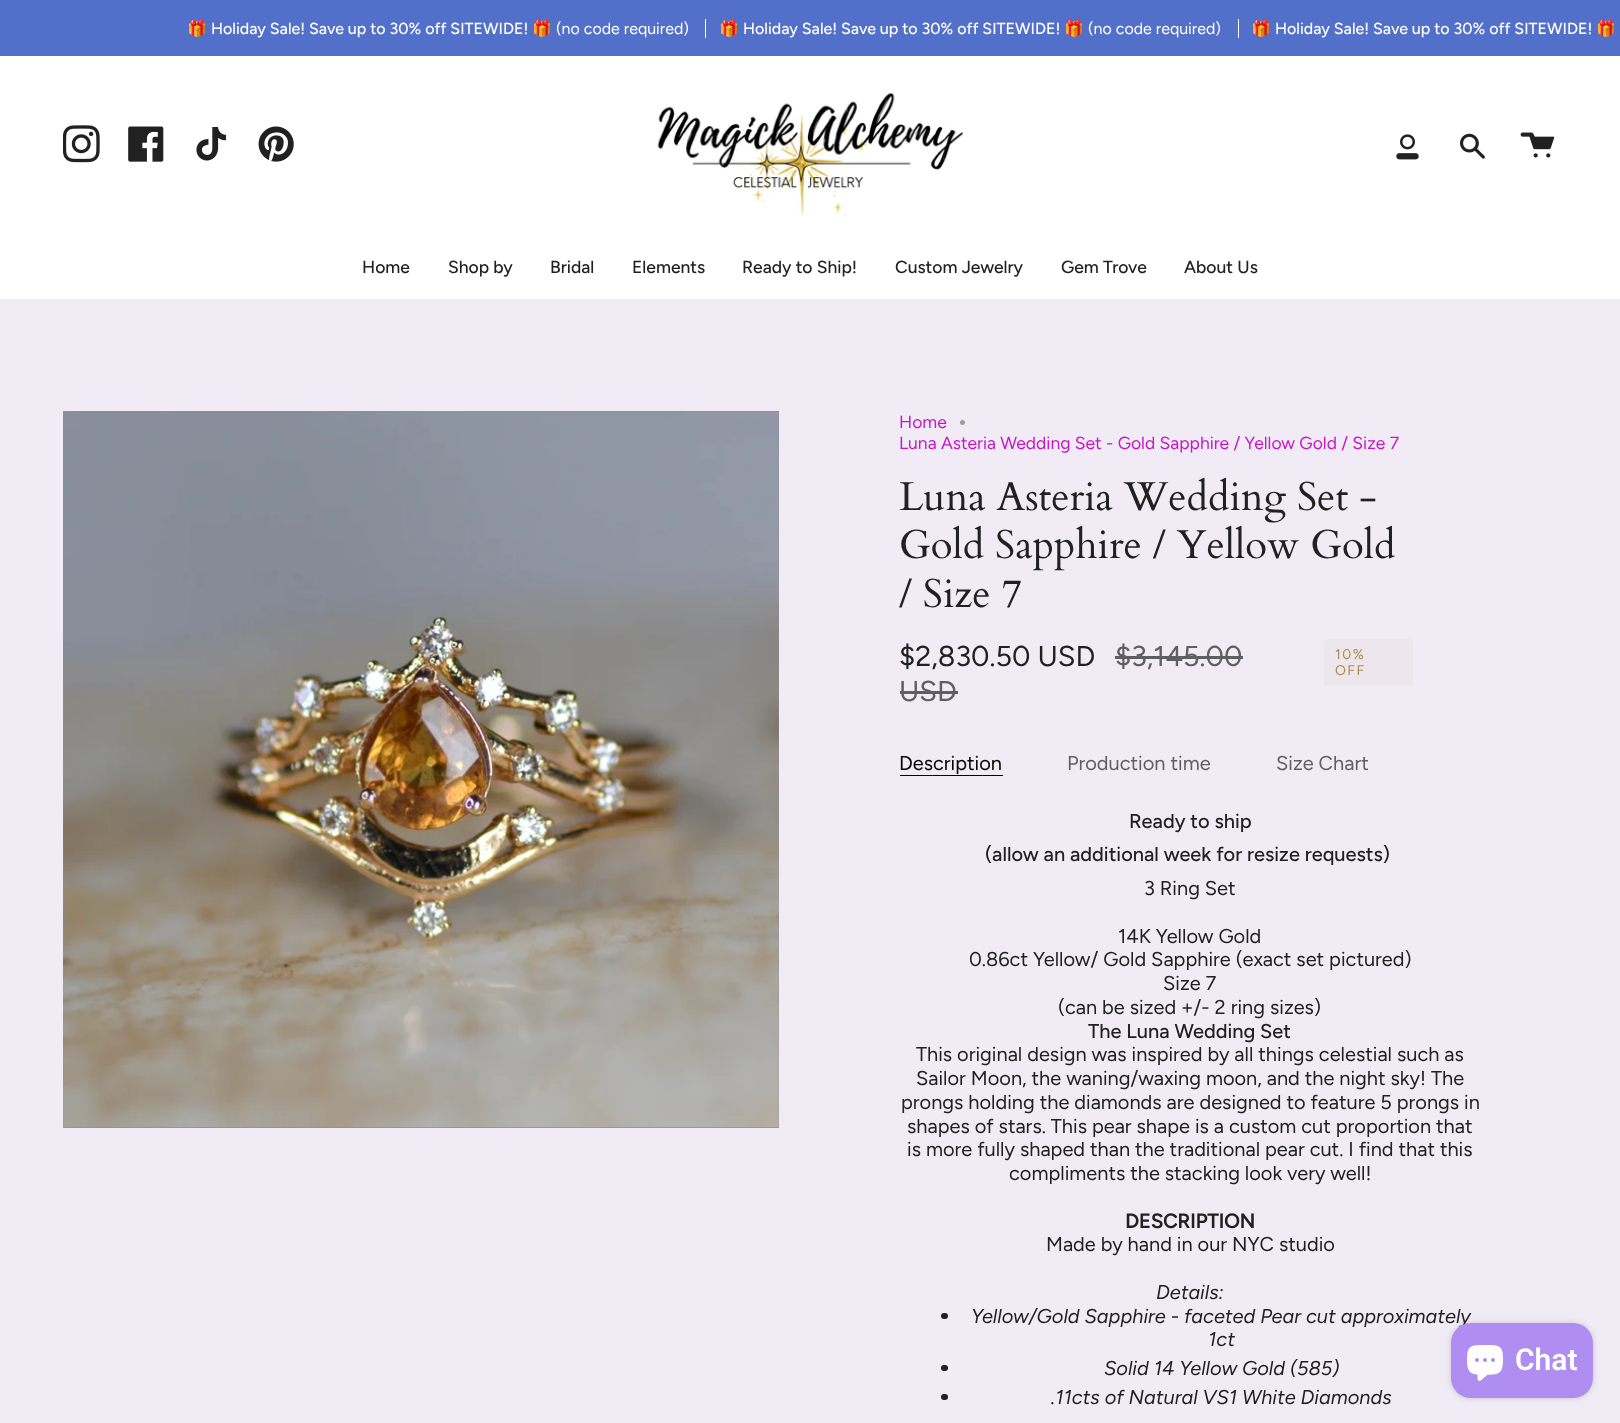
async function draw(canvas) {
	canvas.width = 1620;
	canvas.height = 1423;
	const c = canvas.getContext('2d');
	c.miterLimit = 4;
	c.fontKerning = 'normal';
	async function loadImage(src) {
		const img = new Image();
		img.src = src;
		await img.decode();
		return img;
	}

	c.fillStyle = '#f0ebf4';
	c.fillRect(0, 0, 1620, 1423);
	c.fillStyle = '#526fca';
	c.fillRect(0, 0, 1620, 56);
	c.font = '16px Noto Color Emoji';
	c.fillStyle = '#fff';
	c.fillText('🎁', 187, 34);
	c.font = '500 16px Figtree';
	c.fillText('Holiday Sale! Save up to 30% off SITEWIDE!', 211, 34);
	c.font = '16px Noto Color Emoji';
	c.fillText('🎁', 532, 34);
	c.font = '16px Figtree';
	c.fillText('(no code required)', 556, 34);
	c.fillRect(705, 19, 1, 19);
	c.font = '16px Noto Color Emoji';
	c.fillText('🎁', 719, 34);
	c.font = '500 16px Figtree';
	c.fillText('Holiday Sale! Save up to 30% off SITEWIDE!', 743, 34);
	c.font = '16px Noto Color Emoji';
	c.fillText('🎁', 1064, 34);
	c.font = '16px Figtree';
	c.fillText('(no code required)', 1088, 34);
	c.fillRect(1238, 19, 1, 19);
	c.font = '16px Noto Color Emoji';
	c.fillText('🎁', 1251, 34);
	c.font = '500 16px Figtree';
	c.fillText('Holiday Sale! Save up to 30% off SITEWIDE!', 1275, 34);
	c.font = '16px Noto Color Emoji';
	c.fillText('🎁', 1596, 34);
	c.fillRect(0, 298, 1620, 1);
	c.fillRect(0, 56, 1620, 242);
	c.drawImage(await loadImage('img1.png'), 63, 125, 37, 38);
	c.drawImage(await loadImage('img2.png'), 128, 126, 36, 36);
	c.drawImage(await loadImage('img3.png'), 196, 127, 31, 34);
	c.drawImage(await loadImage('img4.png'), 258, 126, 36, 36);
	c.drawImage(await loadImage('img5.png'), 657, 93, 307, 124);
	c.drawImage(await loadImage('img6.png'), 1396, 134, 23, 26);
	c.drawImage(await loadImage('img7.png'), 1460, 133, 25, 26);
	c.drawImage(await loadImage('img8.png'), 1520, 132, 35, 26);
	c.font = '500 17.5px Figtree';
	c.fillStyle = '#212121';
	for (const [text, x, y] of [
		['Home', 362, 273],
		['Shop by', 448, 273],
		['Bridal', 550, 273],
		['Elements', 632, 273],
		['Ready to Ship!', 742, 273],
		['Custom Jewelry', 895, 273],
		['Gem Trove', 1061, 273],
		['About Us', 1184, 273],
	]) {
		c.fillText(text, x, y);
	}
	c.fillStyle = '#949088';
	c.fillRect(63, 411, 716, 717);
	c.drawImage(await loadImage('img9.png'), 63, 411, 716, 717);
	c.font = '17.5px Figtree';
	c.fillStyle = '#c915c6';
	c.fillText('Home', 899, 428);
	c.fillStyle = '#9d9aa0';
	c.beginPath();
	c.arc(962.5, 422.5, 2.5, 0, 2 * Math.PI);
	c.fill();
	c.fillStyle = '#c915c6';
	c.fillText('Luna Asteria Wedding Set - Gold Sapphire / Yellow Gold / Size 7', 899, 449);
	c.font = '40.25px Cardo';
	c.fillStyle = '#212121';
	for (const [text, x, y] of [
		['Luna Asteria Wedding Set -', 899, 510],
		['Gold Sapphire / Yellow Gold', 899, 558],
		['/ Size 7', 899, 607],
	]) {
		c.fillText(text, x, y);
	}
	c.font = '28.75px Figtree';
	c.fillText('$2,830.50 USD', 899, 666);
	c.fillStyle = '#5f5e60';
	c.fillText('$3,145.00', 1115, 666);
	c.fillRect(1115, 656, 128, 3);
	c.fillText('USD', 899, 701);
	c.fillRect(900, 691, 58, 3);
	c.fillStyle = '#ede6ec';
	c.beginPath();
	c.roundRect(1324, 639, 89, 47, 4);
	c.fill();
	c.letterSpacing = '1.5px';
	c.font = '14px Figtree';
	c.fillStyle = '#ab8c52';
	c.fillText('10%', 1335, 659);
	c.fillText('OFF', 1335, 675);
	c.fillStyle = '#000';
	c.fillRect(900, 775, 103, 1);
	c.letterSpacing = '0px';
	c.font = '20px Figtree';
	c.fillText('Description', 899, 770);
	c.fillStyle = '#5f5e60';
	c.fillText('Production time', 1067, 770);
	c.fillText('Size Chart', 1276, 770);
	c.font = '500 20px Figtree';
	c.fillStyle = '#212121';
	c.fillText('Ready to ship', 1129, 828);
	c.fillText('(allow an additional week for resize requests)', 985, 861);
	c.font = '20px Figtree';
	for (const [text, x, y] of [
		['3 Ring Set', 1144, 895],
		['14K Yellow Gold', 1118, 943],
		['0.86ct Yellow/ Gold Sapphire (exact set pictured)', 969, 966],
		['Size 7', 1163, 990],
		['(can be sized +/- 2 ring sizes)', 1058, 1014],
	]) {
		c.fillText(text, x, y);
	}
	c.font = '500 20px Figtree';
	c.fillText('The Luna Wedding Set', 1088, 1038);
	c.font = '20px Figtree';
	for (const [text, x, y] of [
		['This original design was inspired by all things celestial such as', 916, 1061],
		['Sailor Moon, the waning/waxing moon, and the night sky! The', 916, 1085],
		['prongs holding the diamonds are designed to feature 5 prongs in', 901, 1109],
		['shapes of stars. This pear shape is a custom cut proportion that', 907, 1133],
		['is more fully shaped than the traditional pear cut. I find that this', 907, 1156],
		['compliments the stacking look very well!', 1009, 1180],
	]) {
		c.fillText(text, x, y);
	}
	c.font = 'bold 20px Figtree';
	c.fillText('DESCRIPTION', 1125, 1228);
	c.font = '20px Figtree';
	c.fillText('Made by hand in our NYC studio', 1046, 1251);
	c.font = 'italic 20px Figtree';
	c.fillText('Details:', 1156, 1299);
	c.beginPath();
	c.roundRect(941, 1313, 7, 6, 3);
	c.fill();
	c.fillText('Yellow/Gold Sapphire - faceted Pear cut approximately', 971, 1323);
	c.fillText('1ct', 1208, 1346);
	c.beginPath();
	c.roundRect(941, 1365, 7, 6, 3);
	c.fill();
	c.fillText('Solid 14 Yellow Gold (585)', 1104, 1375);
	c.beginPath();
	c.roundRect(941, 1394, 7, 6, 3);
	c.fill();
	c.fillText('.11cts of Natural VS1 White Diamonds', 1051, 1404);
	c.fillStyle = '#00000026';
	c.filter = 'blur(3px)';
	c.beginPath();
	c.roundRect(1451, 1323, 142, 75, 20);
	c.fill();
	c.filter = 'none';
	c.fillStyle = '#b08df1';
	c.beginPath();
	c.roundRect(1451, 1323, 142, 75, 20);
	c.fill();
	c.drawImage(await loadImage('img10.png'), 1467, 1345, 36, 36);
	c.font = '600 30px Roboto';
	c.fillStyle = '#fff';
	c.fillText('Chat', 1515, 1370);
}

draw(document.querySelector('canvas'));
